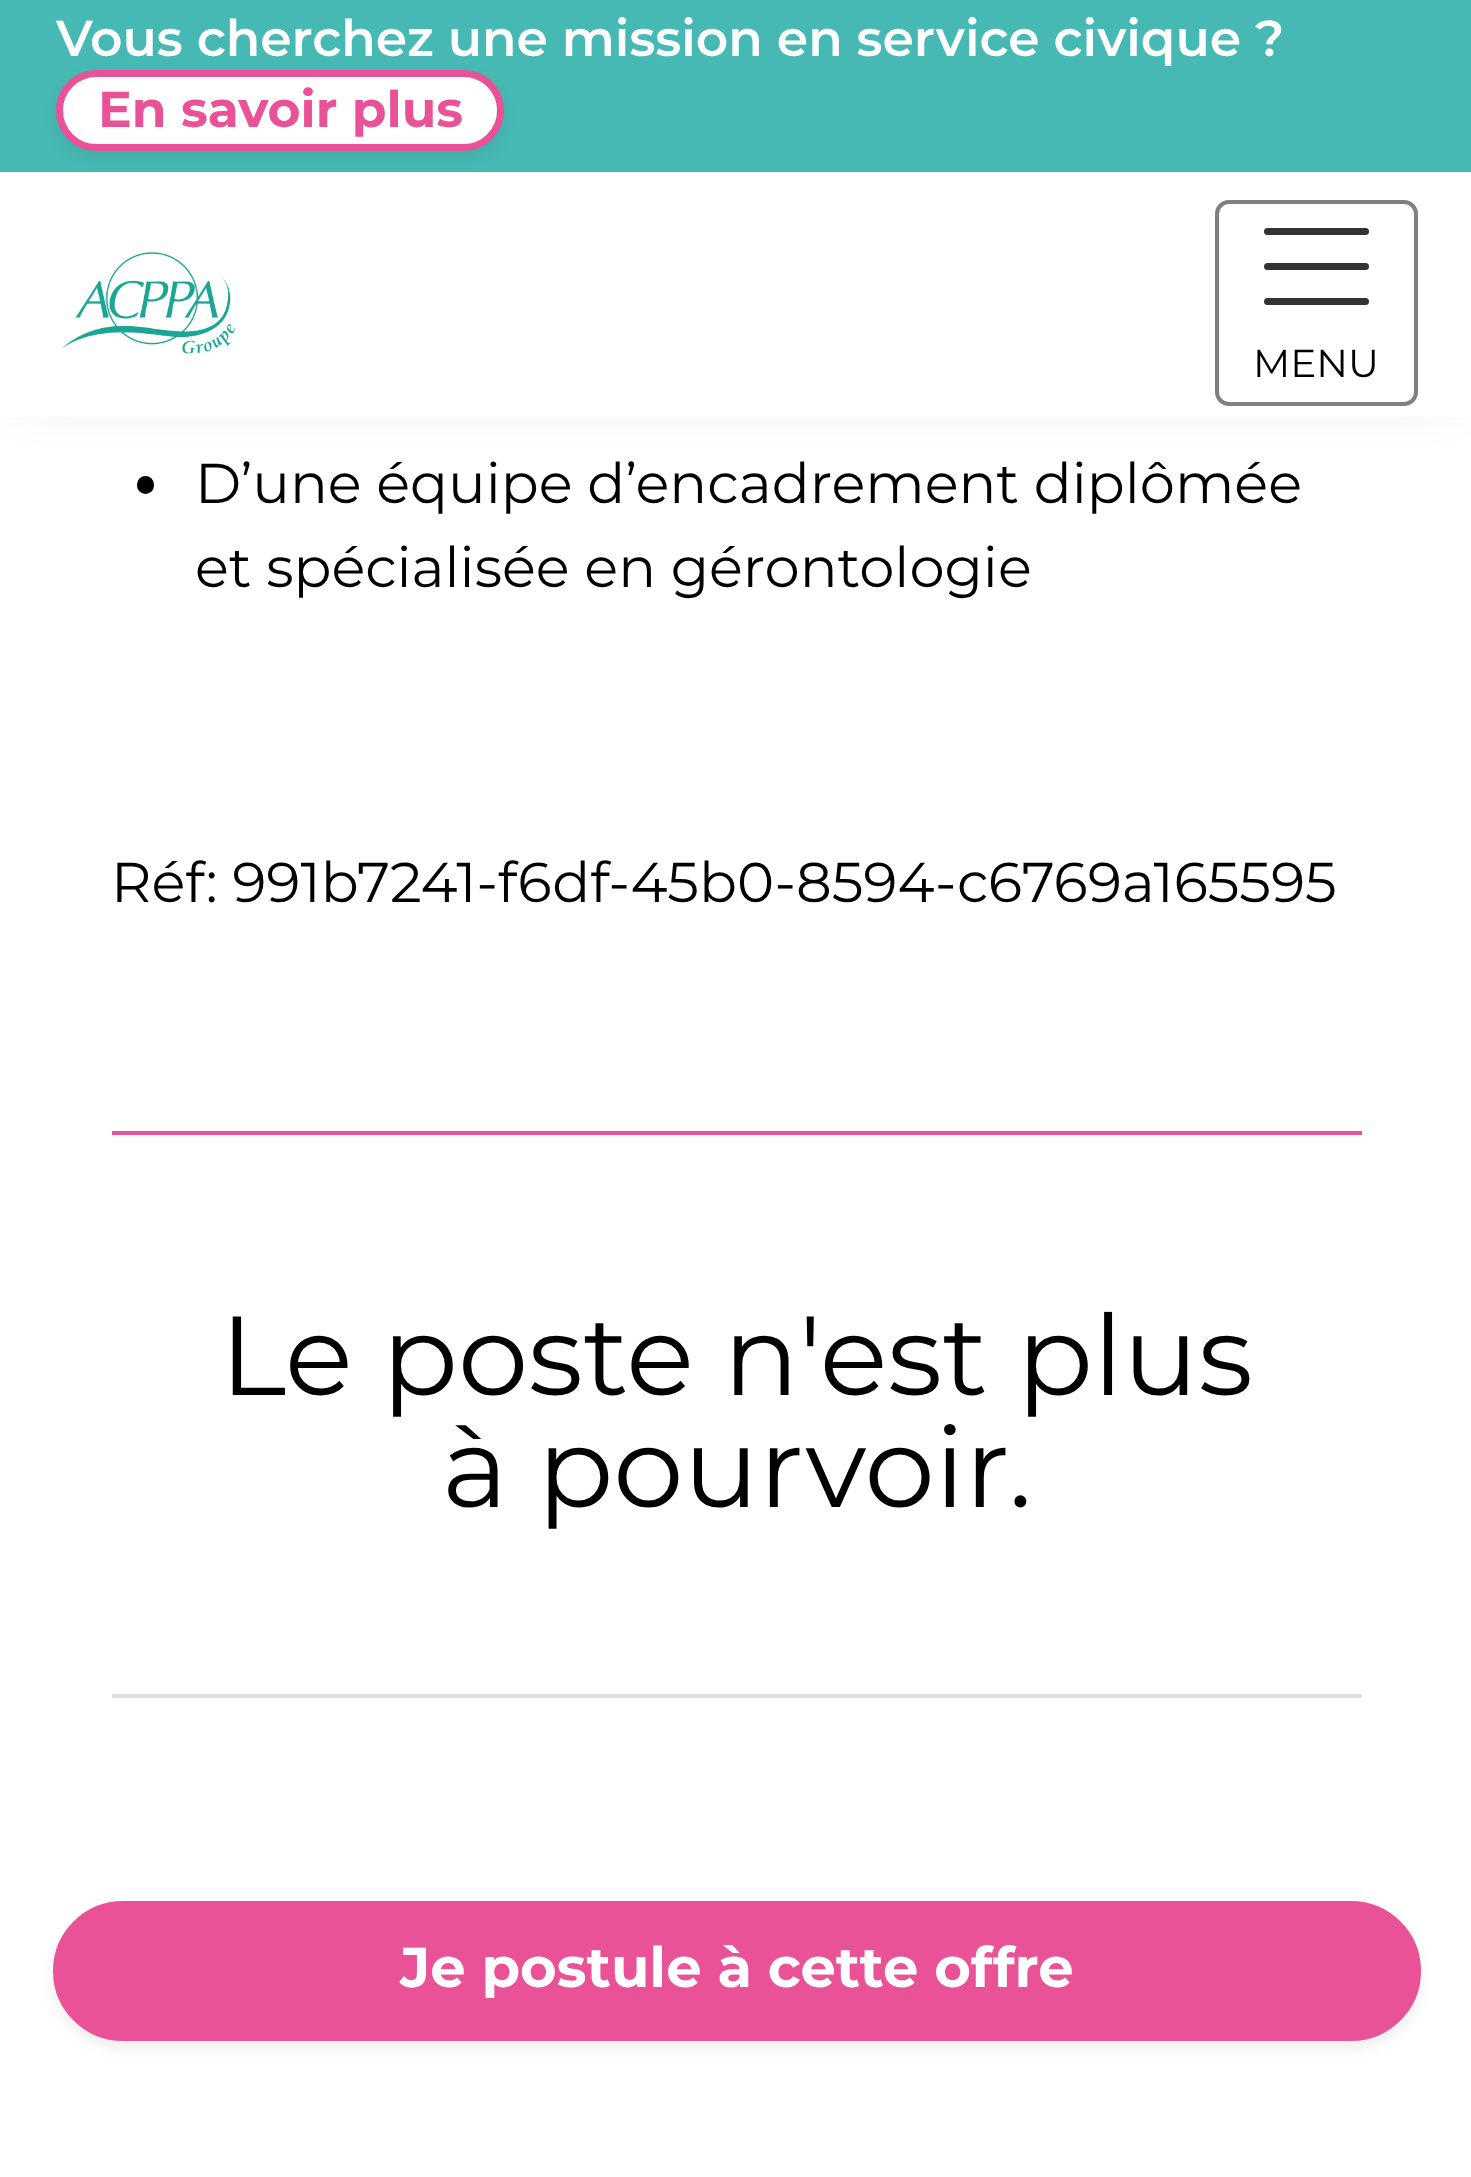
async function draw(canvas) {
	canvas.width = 1471;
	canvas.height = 2177;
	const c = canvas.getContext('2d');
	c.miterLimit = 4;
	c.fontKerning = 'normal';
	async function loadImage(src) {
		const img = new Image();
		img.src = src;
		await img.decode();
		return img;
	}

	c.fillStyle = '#fff';
	c.fillRect(0, 0, 1471, 2177);
	c.fillStyle = '#000';
	c.beginPath();
	c.roundRect(137, 476, 17, 18, 8.5);
	c.fill();
	c.fillStyle = '#0000001a';
	c.filter = 'blur(26px)';
	c.beginPath();
	c.rect(18, 18, 1438, 381);
	c.fill();
	c.filter = 'none';
	c.fillStyle = '#fff';
	c.fillRect(0, 172, 1471, 245);
	c.fillStyle = '#47b9b4';
	c.fillRect(0, 0, 1471, 172);
	c.font = '600 50.4px Montserrat';
	c.fillStyle = '#fff';
	c.fillText('Vous cherchez une mission en service civique ?', 56, 56);
	c.fillStyle = '#00000012';
	c.filter = 'blur(7px)';
	c.beginPath();
	c.roundRect(56, 77, 448, 81, 40.5);
	c.fill();
	c.filter = 'none';
	c.fillStyle = '#fff';
	c.beginPath();
	c.roundRect(59.5, 73.5, 441, 74, 37);
	c.fill();
	c.strokeStyle = '#ea5297';
	c.lineWidth = 7;
	c.stroke();
	c.font = 'bold 50.4px Montserrat';
	c.fillStyle = '#ea5297';
	c.fillText('En savoir plus', 98, 127);
	c.drawImage(await loadImage('img1.png'), 62, 252, 173, 102);
	c.beginPath();
	c.roundRect(1217, 202, 199, 202, 12);
	c.strokeStyle = '#808080';
	c.lineWidth = 4;
	c.stroke();
	c.fillStyle = '#333';
	c.beginPath();
	c.roundRect(1264, 263, 105, 7, 3.5);
	c.fill();
	c.beginPath();
	c.roundRect(1264, 228, 105, 7, 3.5);
	c.fill();
	c.beginPath();
	c.roundRect(1264, 298, 105, 7, 3.5);
	c.fill();
	c.font = '39px Montserrat';
	c.fillStyle = '#000';
	c.fillText('MENU', 1253, 377);
	c.fillStyle = '#ea5297';
	c.fillRect(112, 1131, 1250, 4);
	c.font = '56px Montserrat';
	c.fillStyle = '#000';
	for (const [text, x, y] of [
		['D’une équipe d’encadrement diplômée', 195, 503],
		['et spécialisée en gérontologie', 195, 587],
		['Réf: 991b7241-f6df-45b0-8594-c6769a165595', 111, 902],
	]) {
		c.fillText(text, x, y);
	}
	c.font = '112px Montserrat';
	c.fillText('Le poste n\'est plus', 220, 1395);
	c.fillText('à pourvoir.', 442, 1507);
	c.fillStyle = '#e0e0e0';
	c.fillRect(112, 1694, 1250, 4);
	c.fillStyle = '#00000012';
	c.filter = 'blur(7px)';
	c.beginPath();
	c.roundRect(53, 1908, 1368, 140, 70);
	c.fill();
	c.filter = 'none';
	c.fillStyle = '#ea5297';
	c.beginPath();
	c.roundRect(56.5, 1904.5, 1361, 133, 66.5);
	c.fill();
	c.strokeStyle = '#ea5297';
	c.lineWidth = 7;
	c.stroke();
	c.font = 'bold 56px Montserrat';
	c.fillStyle = '#fff';
	c.fillText('Je postule à cette offre', 400, 1987);
}

draw(document.querySelector('canvas'));
